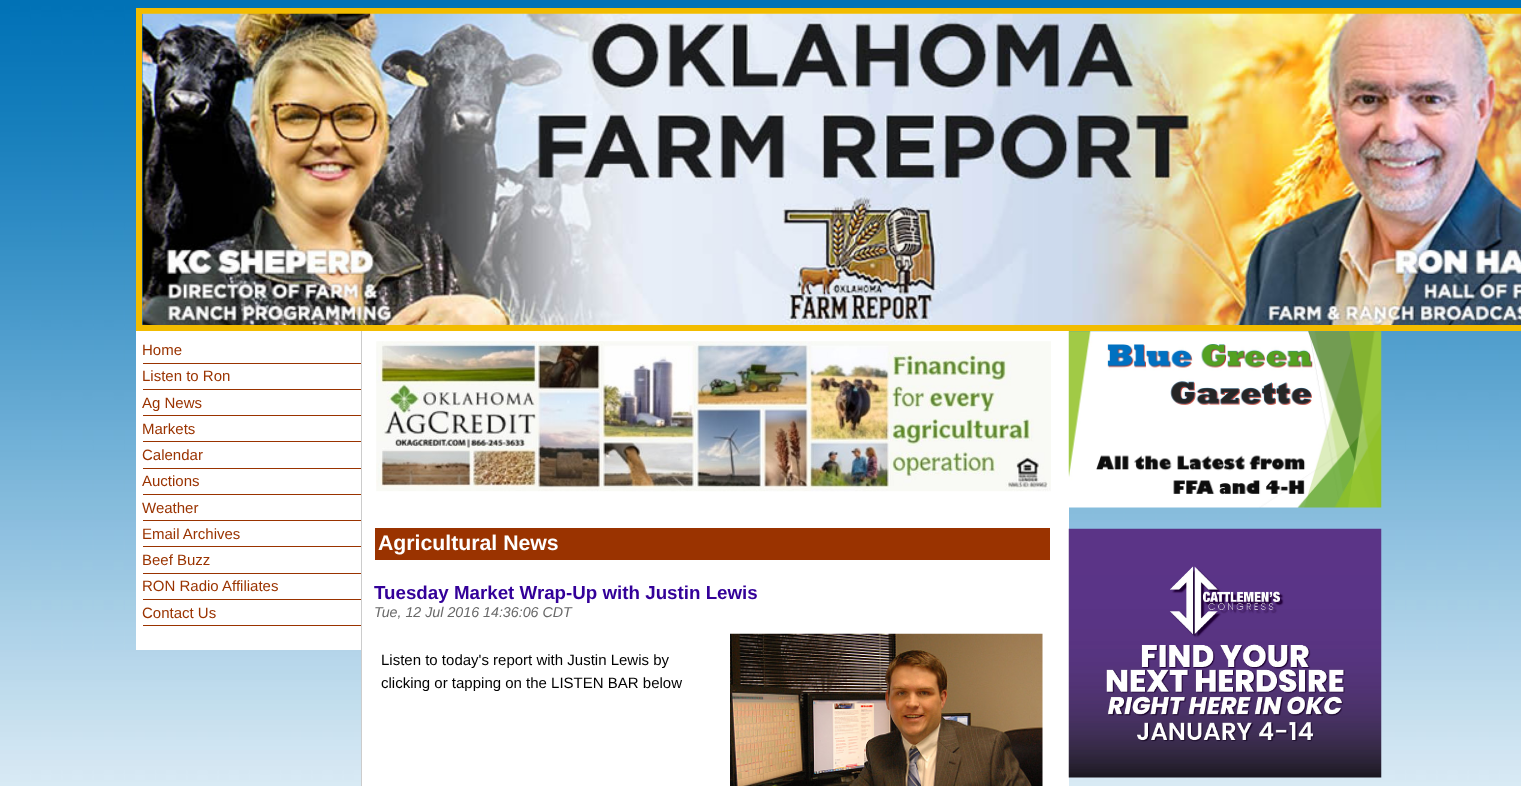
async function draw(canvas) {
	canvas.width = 1521;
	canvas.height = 786;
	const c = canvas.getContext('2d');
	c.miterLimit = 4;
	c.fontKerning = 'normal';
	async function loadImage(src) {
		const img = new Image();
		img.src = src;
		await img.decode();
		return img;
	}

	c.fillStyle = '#fff';
	c.fillRect(0, 0, 1521, 786);
	c.drawImage(await loadImage('img1.png'), 0, 0, 1521, 786);
	c.strokeStyle = '#f2bc00';
	c.lineWidth = 6;
	c.strokeRect(139, 11, 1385, 317);
	c.drawImage(await loadImage('img2.png'), 142, 13, 1379, 312);
	c.fillRect(136, 331, 225, 319);
	c.fillStyle = '#9a3300';
	c.fillRect(143, 363, 218, 1);
	c.font = '15px Liberation Sans';
	c.fillText('Home', 142, 355);
	c.fillRect(143, 389, 218, 1);
	c.fillText('Listen to Ron', 142, 381);
	c.fillRect(143, 415, 218, 1);
	c.fillText('Ag News', 142, 408);
	c.fillRect(143, 441, 218, 1);
	c.fillText('Markets', 142, 434);
	c.fillRect(143, 468, 218, 1);
	c.fillText('Calendar', 142, 460);
	c.fillRect(143, 494, 218, 1);
	c.fillText('Auctions', 142, 486);
	c.fillRect(143, 520, 218, 1);
	c.fillText('Weather', 142, 513);
	c.fillRect(143, 546, 218, 1);
	c.fillText('Email Archives', 142, 539);
	c.fillRect(143, 573, 218, 1);
	c.fillText('Beef Buzz', 142, 565);
	c.fillRect(143, 599, 218, 1);
	c.fillText('RON Radio Affiliates', 142, 591);
	c.fillRect(143, 625, 218, 1);
	c.fillText('Contact Us', 142, 618);
	c.fillStyle = '#fff';
	c.fillRect(362, 331, 707, 455);
	c.fillStyle = '#ccc';
	c.fillRect(361, 331, 1, 455);
	c.drawImage(await loadImage('img3.png'), 376, 341, 675, 151);
	c.fillStyle = '#9a3300';
	c.fillRect(375, 528, 675, 32);
	c.font = 'bold 21.25px Liberation Sans';
	c.fillStyle = '#fff';
	c.fillText('Agricultural News', 378, 550);
	c.font = 'bold 18.75px Liberation Sans';
	c.fillStyle = '#309';
	c.fillText('Tuesday Market Wrap-Up with Justin Lewis', 374, 599);
	c.font = 'italic 14.25px Liberation Sans';
	c.fillStyle = '#696969';
	c.fillText('Tue, 12 Jul 2016 14:36:06 CDT', 374, 617);
	c.font = '15px Liberation Sans';
	c.fillStyle = '#000';
	c.fillText('Listen to today\'s report with Justin Lewis by', 381, 665);
	c.drawImage(await loadImage('img4.png'), 730, 633, 313, 153);
	c.fillText('clicking or tapping on the LISTEN BAR below', 381, 688);
	c.drawImage(await loadImage('img5.png'), 1068, 331, 314, 177);
	c.drawImage(await loadImage('img6.png'), 1068, 528, 314, 250);
}

draw(document.querySelector('canvas'));
